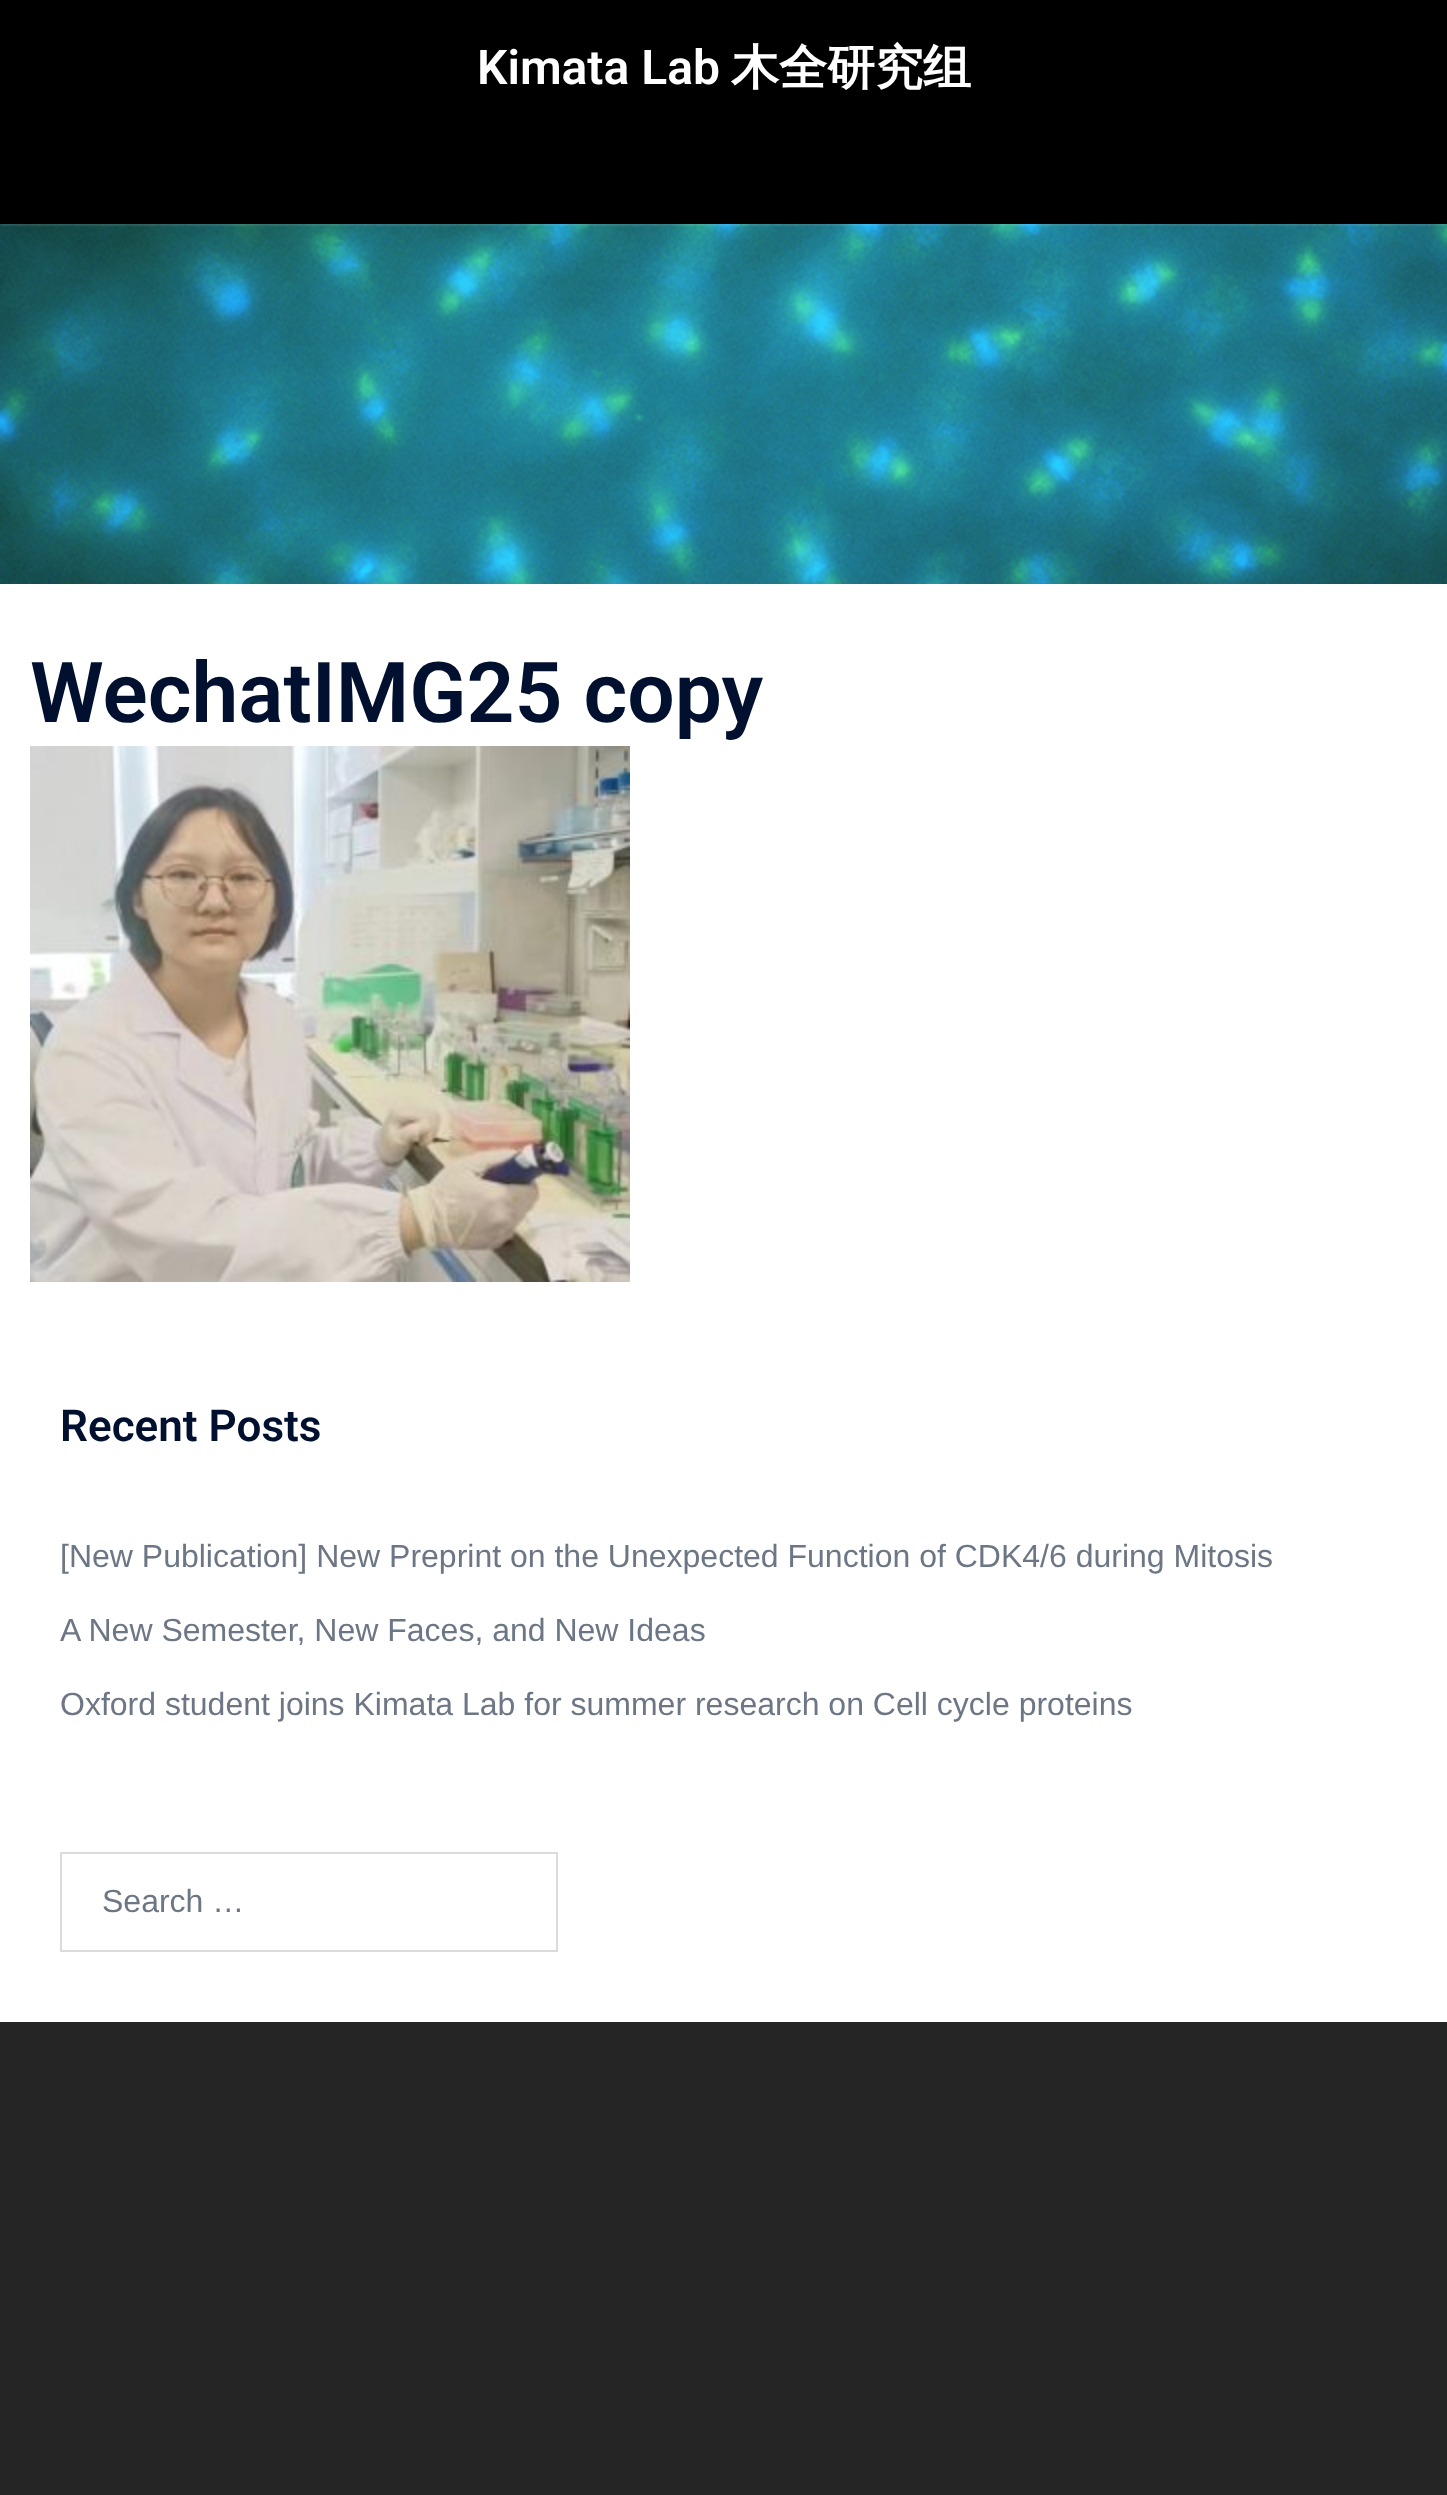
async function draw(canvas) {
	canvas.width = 1447;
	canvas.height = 2495;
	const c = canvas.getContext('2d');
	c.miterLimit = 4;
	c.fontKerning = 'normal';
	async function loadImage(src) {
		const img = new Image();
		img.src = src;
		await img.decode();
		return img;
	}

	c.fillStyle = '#fff';
	c.fillRect(0, 0, 1447, 2495);
	c.fillStyle = '#000';
	c.fillRect(0, 0, 1447, 224);
	c.font = '600 48px Roboto';
	c.fillStyle = '#fff';
	c.fillText('Kimata Lab', 477, 84);
	c.font = 'bold 48px WenQuanYi Zen Hei';
	c.fillText('木全研究组', 731, 84);
	c.drawImage(await loadImage('img1.png'), 0, 224, 1447, 360);
	c.font = '600 84px Roboto';
	c.fillStyle = '#00102e';
	c.fillText('WechatIMG25 copy', 30, 722);
	c.drawImage(await loadImage('img2.png'), 30, 746, 600, 536);
	c.font = '600 44px Roboto';
	c.fillText('Recent Posts', 60, 1441);
	c.font = '32px Liberation Sans';
	c.fillStyle = '#6d7685';
	for (const [text, x, y] of [
		['[New Publication] New Preprint on the Unexpected Function of CDK4/6 during Mitosis', 60, 1567],
		['A New Semester, New Faces, and New Ideas', 60, 1641],
		['Oxford student joins Kimata Lab for summer research on Cell cycle proteins', 60, 1715],
	]) {
		c.fillText(text, x, y);
	}
	c.strokeStyle = '#dbdbdb';
	c.lineWidth = 2;
	c.strokeRect(61, 1853, 496, 98);
	c.fillText('Search …', 102, 1912);
	c.fillStyle = '#252525';
	c.fillRect(0, 2022, 1447, 473);
}

draw(document.querySelector('canvas'));
